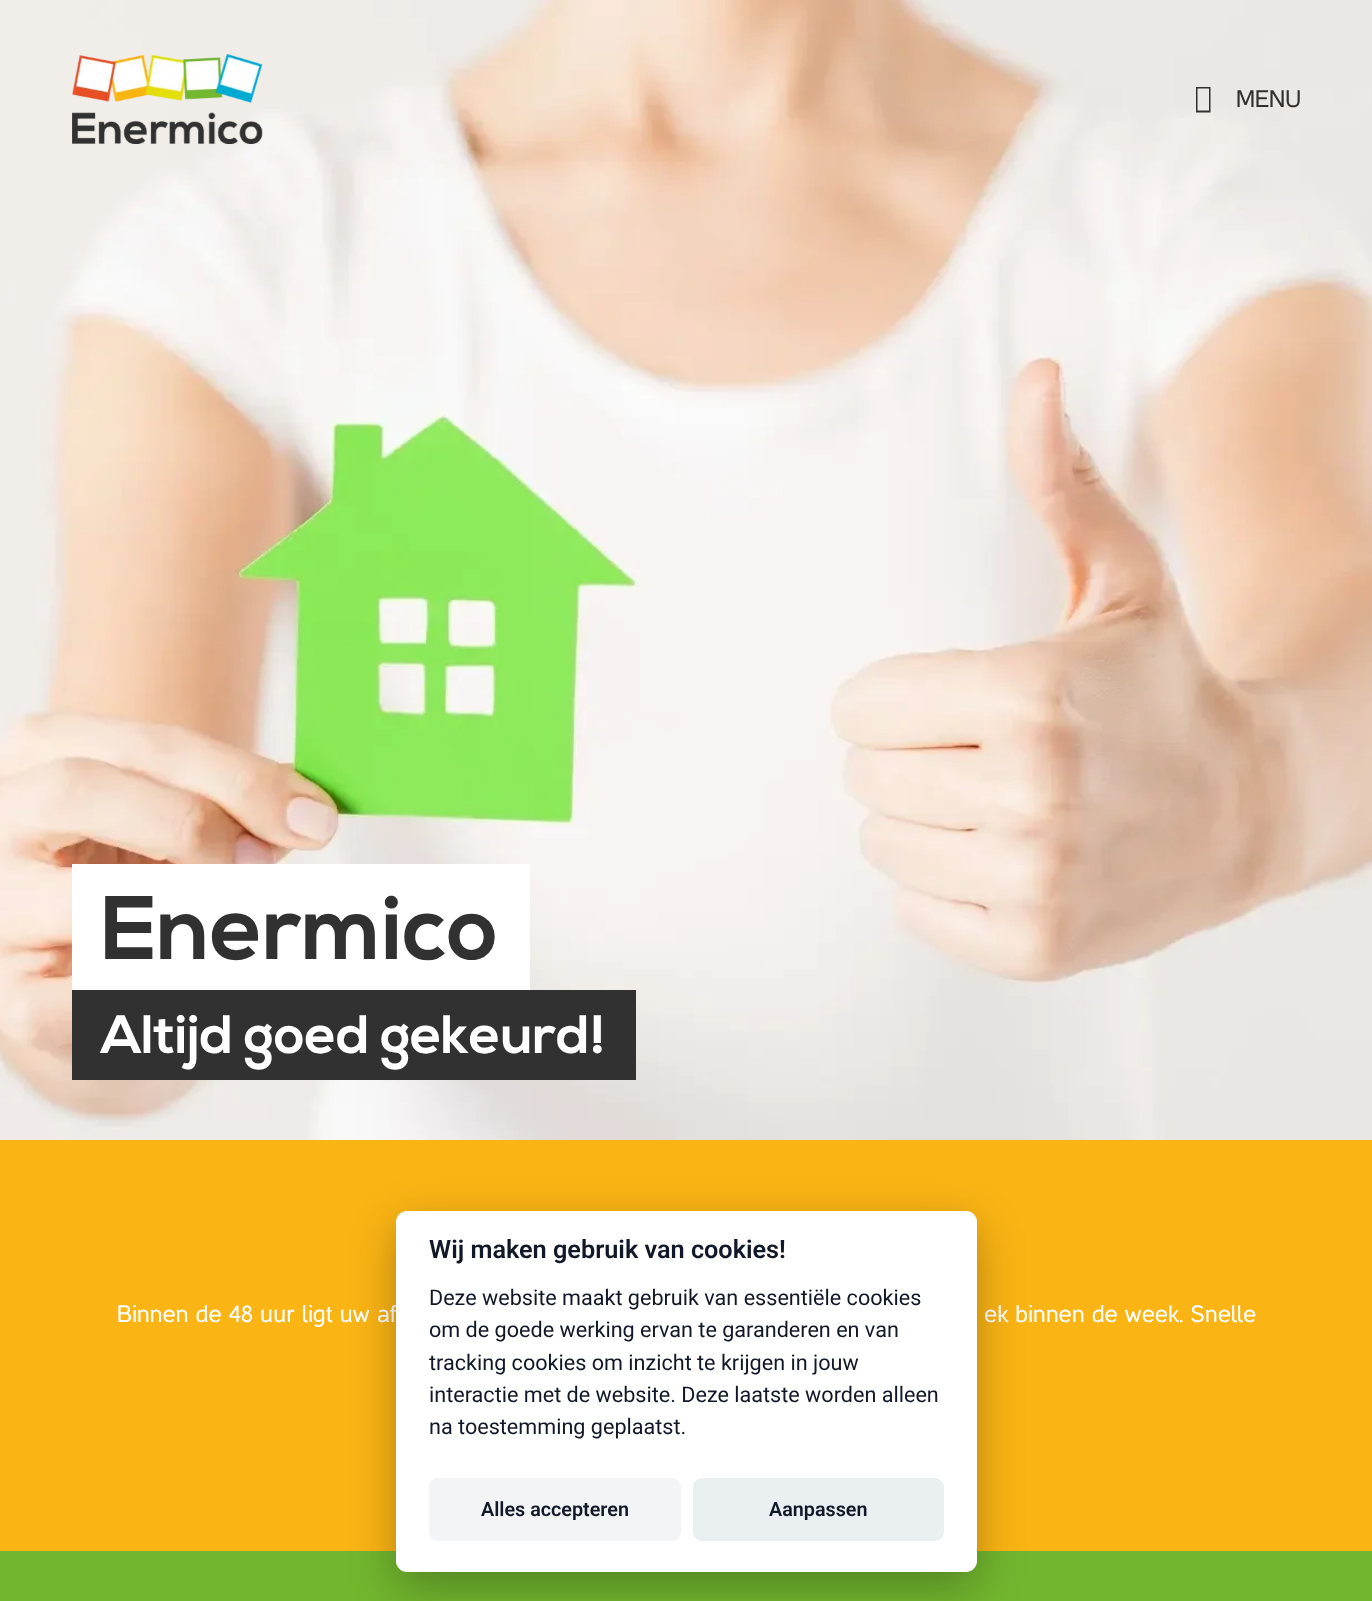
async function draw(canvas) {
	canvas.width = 1372;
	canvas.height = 1601;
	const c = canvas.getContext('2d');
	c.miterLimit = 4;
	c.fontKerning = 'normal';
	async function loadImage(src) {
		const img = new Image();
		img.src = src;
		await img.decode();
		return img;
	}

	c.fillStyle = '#fff';
	c.fillRect(0, 0, 1372, 1601);
	c.drawImage(await loadImage('img2.png'), 0, 0, 1372, 1140);
	c.drawImage(await loadImage('img1.png'), 72, 54, 191, 90);
	c.fillStyle = '#313131';
	c.beginPath();
	c.moveTo(1196, 112.5);
	c.lineTo(1196, 87);
	c.lineTo(1210.5, 87);
	c.lineTo(1210.5, 112.5);
	c.closePath();
	c.moveTo(1197.5, 110.5);
	c.lineTo(1209, 110.5);
	c.lineTo(1209, 88.5);
	c.lineTo(1197.5, 88.5);
	c.closePath();
	c.fill();
	c.font = '24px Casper';
	c.fillText('MENU', 1236, 107);
	c.fillStyle = '#fff';
	c.fillRect(72, 864, 458, 126);
	c.font = 'bold 90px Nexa';
	c.fillStyle = '#313131';
	c.fillText('Enermico', 101, 959);
	c.fillRect(72, 990, 564, 90);
	c.font = 'bold 54px Nexa';
	c.fillStyle = '#fff';
	c.fillText('Altijd goed gekeurd!', 101, 1053);
	c.fillStyle = '#fab414';
	c.fillRect(0, 1140, 1372, 411);
	c.font = '24px Casper';
	c.fillStyle = '#fff';
	c.fillText('Binnen de 48 uur ligt uw af', 117, 1322);
	c.fillText('ek binnen de week. Snelle', 984, 1322);
	c.fillStyle = '#72b62e';
	c.fillRect(0, 1551, 1372, 50);
	c.fillStyle = '#02020347';
	c.filter = 'blur(22.5px)';
	c.beginPath();
	c.roundRect(396, 1226, 581, 361, 11);
	c.fill();
	c.filter = 'none';
	c.fillStyle = '#fff';
	c.beginPath();
	c.roundRect(396, 1211, 581, 361, 11);
	c.fill();
	c.font = '600 25.25px Roboto';
	c.fillStyle = '#111827';
	c.fillText('Wij maken gebruik van cookies!', 429, 1258);
	c.font = '21.6px Roboto';
	for (const [text, x, y] of [
		['Deze website maakt gebruik van essentiële cookies', 429, 1305],
		['om de goede werking ervan te garanderen en van', 429, 1337],
		['tracking cookies om inzicht te krijgen in jouw', 429, 1370],
		['interactie met de website. Deze laatste worden alleen', 429, 1402],
		['na toestemming geplaatst.', 429, 1434],
	]) {
		c.fillText(text, x, y);
	}
	c.fillStyle = '#f3f4f6';
	c.beginPath();
	c.roundRect(429, 1478, 252, 63, 9);
	c.fill();
	c.font = '600 19.75px Roboto';
	c.fillStyle = '#111827';
	c.fillText('Alles accepteren', 481, 1516);
	c.fillStyle = '#eaeff2';
	c.beginPath();
	c.roundRect(693, 1478, 251, 63, 9);
	c.fill();
	c.fillStyle = '#111827';
	c.fillText('Aanpassen', 769, 1516);
}

draw(document.querySelector('canvas'));
